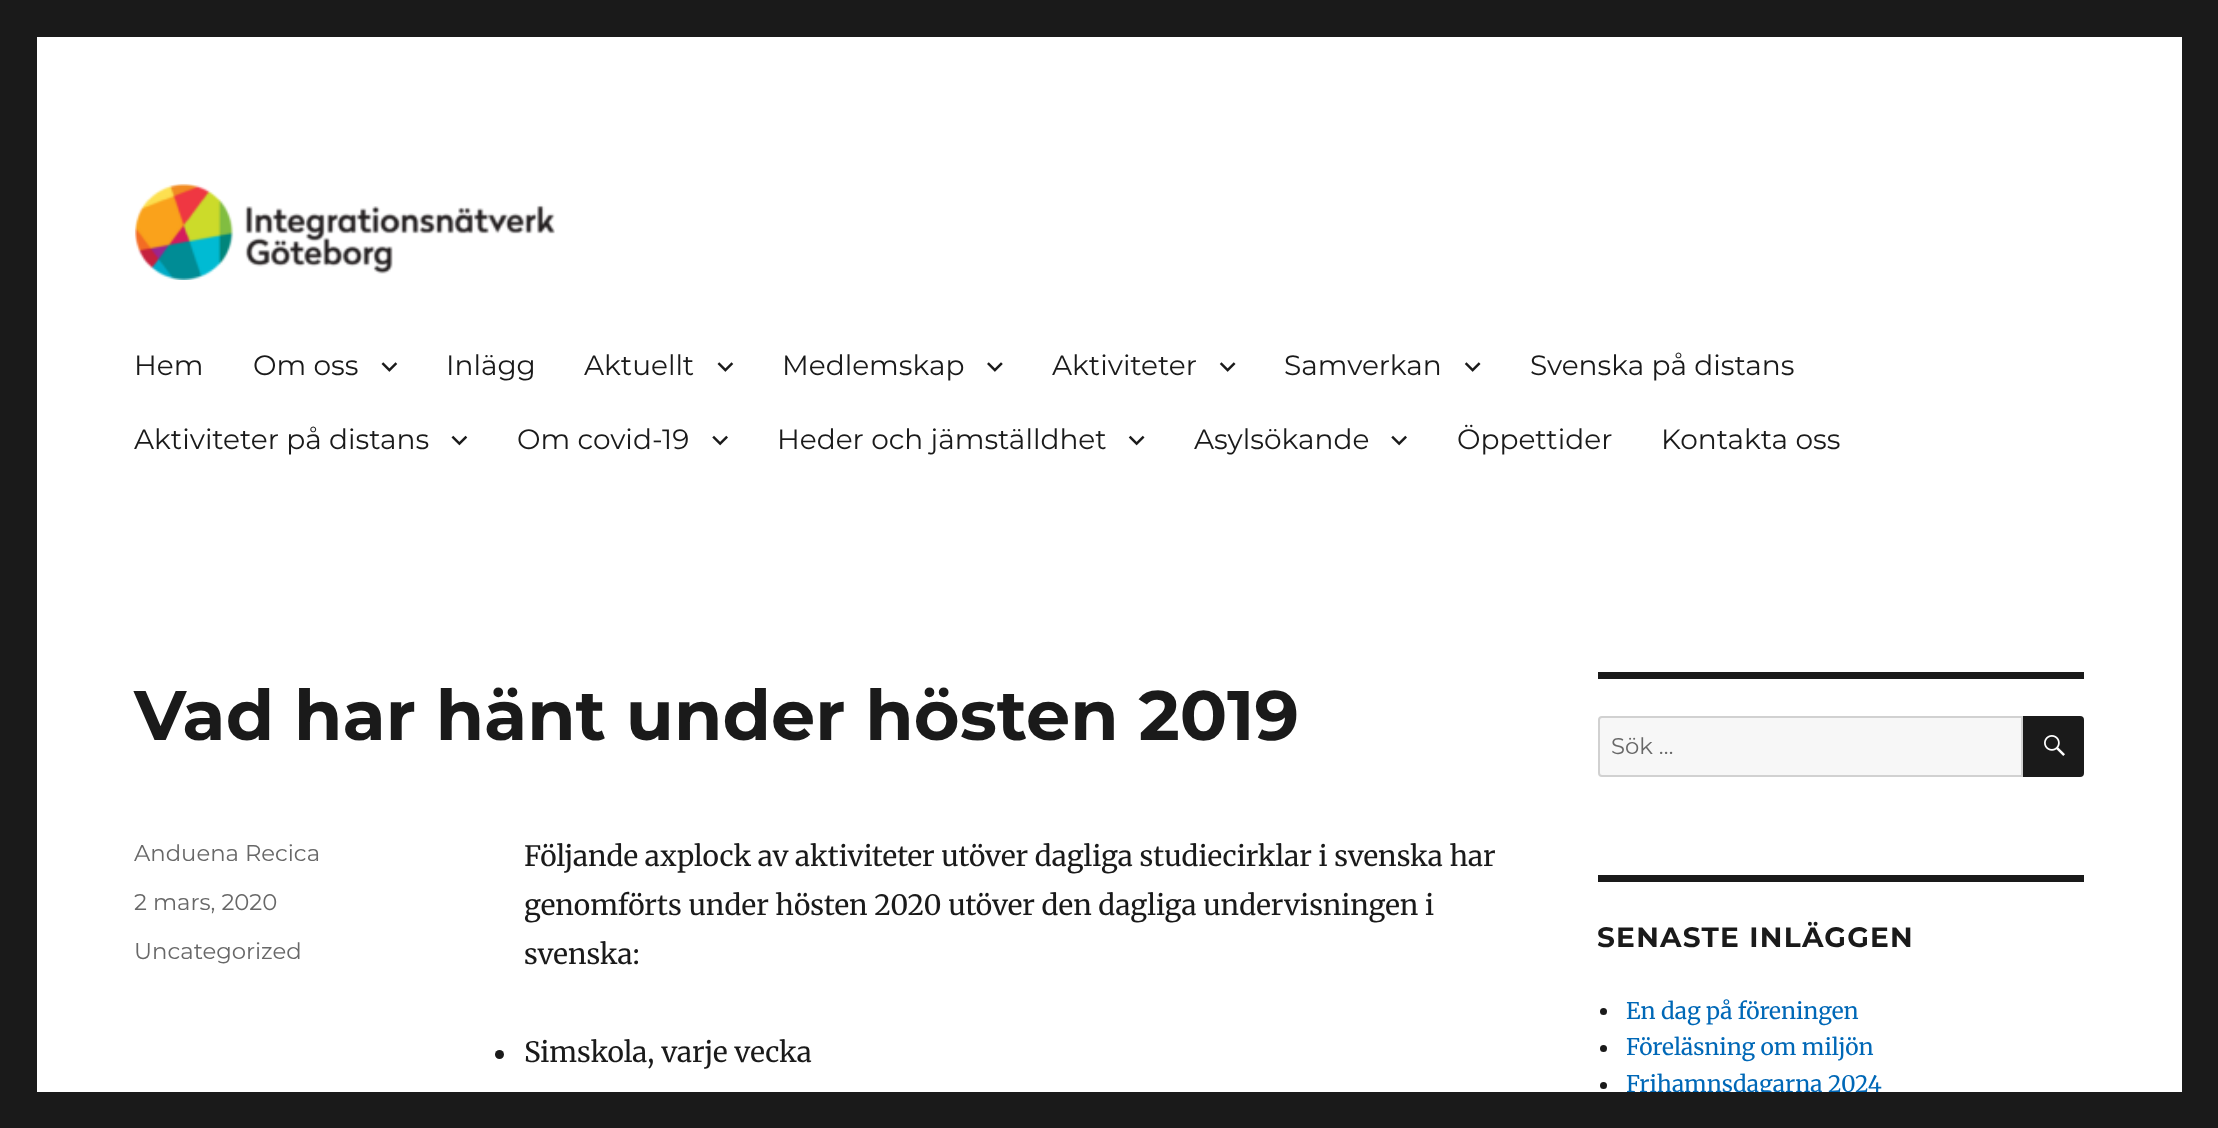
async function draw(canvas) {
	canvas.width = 2218;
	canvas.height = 1128;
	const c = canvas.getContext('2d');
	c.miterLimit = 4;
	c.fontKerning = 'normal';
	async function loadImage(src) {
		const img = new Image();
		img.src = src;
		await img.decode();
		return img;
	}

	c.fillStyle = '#1a1a1a';
	c.fillRect(0, 0, 2218, 1128);
	c.fillStyle = '#fff';
	c.fillRect(37, 37, 2145, 1055);
	c.drawImage(await loadImage('img1.png'), 134, 183, 421, 97);
	c.font = '28px Montserrat';
	c.fillStyle = '#1a1a1a';
	c.fillText('Hem', 134, 375);
	c.fillText('Om oss', 253, 375);
	c.drawImage(await loadImage('img2.png'), 381, 362, 17, 10);
	c.fillText('Inlägg', 446, 375);
	c.fillText('Aktuellt', 584, 375);
	c.drawImage(await loadImage('img2.png'), 717, 362, 17, 10);
	c.fillText('Medlemskap', 782, 375);
	c.drawImage(await loadImage('img3.png'), 987, 362, 16, 10);
	c.fillText('Aktiviteter', 1052, 375);
	c.drawImage(await loadImage('img4.png'), 1219, 362, 17, 10);
	c.fillText('Samverkan', 1284, 375);
	c.drawImage(await loadImage('img4.png'), 1464, 362, 17, 10);
	c.fillText('Svenska på distans', 1530, 375);
	c.fillText('Aktiviteter på distans', 134, 449);
	c.drawImage(await loadImage('img5.png'), 451, 435, 17, 11);
	c.fillText('Om covid-19', 517, 449);
	c.drawImage(await loadImage('img6.png'), 712, 435, 16, 11);
	c.fillText('Heder och jämställdhet', 777, 449);
	c.drawImage(await loadImage('img7.png'), 1128, 435, 17, 11);
	c.fillText('Asylsökande', 1194, 449);
	c.drawImage(await loadImage('img6.png'), 1391, 435, 16, 11);
	c.fillText('Öppettider', 1457, 449);
	c.fillText('Kontakta oss', 1661, 449);
	c.font = 'bold 70px Montserrat';
	c.fillText('Vad har hänt under hösten 2019', 134, 740);
	c.font = '22.75px Montserrat';
	c.fillStyle = '#686868';
	for (const [text, x, y] of [
		['Anduena Recica', 134, 861],
		['2 mars, 2020', 134, 910],
		['Uncategorized', 134, 959],
	]) {
		c.fillText(text, x, y);
	}
	c.font = '28px Merriweather';
	c.fillStyle = '#1a1a1a';
	for (const [text, x, y] of [
		['Följande axplock av aktiviteter utöver dagliga studiecirklar i svenska har', 524, 866],
		['genomförts under hösten 2020 utöver den dagliga undervisningen i', 524, 915],
		['svenska:', 524, 964],
	]) {
		c.fillText(text, x, y);
	}
	c.beginPath();
	c.arc(499.5, 1054.5, 4.5, 0, 2 * Math.PI);
	c.fill();
	c.fillText('Simskola, varje vecka', 524, 1062);
	c.fillRect(1598, 672, 486, 7);
	c.fillStyle = '#f7f7f7';
	c.beginPath();
	c.roundRect(1599, 717, 423, 59, [3, 0, 0, 3]);
	c.fill();
	c.strokeStyle = '#d1d1d1';
	c.lineWidth = 2;
	c.stroke();
	c.font = '22.75px Montserrat';
	c.fillStyle = '#686868';
	c.fillText('Sök …', 1611, 754);
	c.fillStyle = '#1a1a1a';
	c.beginPath();
	c.roundRect(2023, 716, 61, 61, [0, 4, 4, 0]);
	c.fill();
	c.drawImage(await loadImage('img8.png'), 2044, 735, 21, 21);
	c.fillRect(1598, 875, 486, 7);
	c.letterSpacing = '1.25px';
	c.font = 'bold 28px Montserrat';
	c.fillText('SENASTE INLÄGGEN', 1597, 947);
	c.beginPath();
	c.arc(1603.5, 1011.5, 3.5, 0, 2 * Math.PI);
	c.fill();
	c.letterSpacing = '0px';
	c.font = '22.75px Merriweather';
	c.fillStyle = '#0068b7';
	c.fillText('En dag på föreningen', 1626, 1019);
	c.fillStyle = '#1a1a1a';
	c.beginPath();
	c.arc(1603.5, 1048.5, 3.5, 0, 2 * Math.PI);
	c.fill();
	c.fillStyle = '#0068b7';
	c.fillText('Föreläsning om miljön', 1626, 1055);
	c.fillStyle = '#1a1a1a';
	c.beginPath();
	c.arc(1603.5, 1085.5, 3.5, 0, 2 * Math.PI);
	c.fill();
	c.fillStyle = '#0068b7';
	c.fillText('Frihamnsdagarna 2024', 1626, 1092);
	c.fillStyle = '#1a1a1a';
	c.fillRect(1674, 1092, 175, 7);
}

draw(document.querySelector('canvas'));
